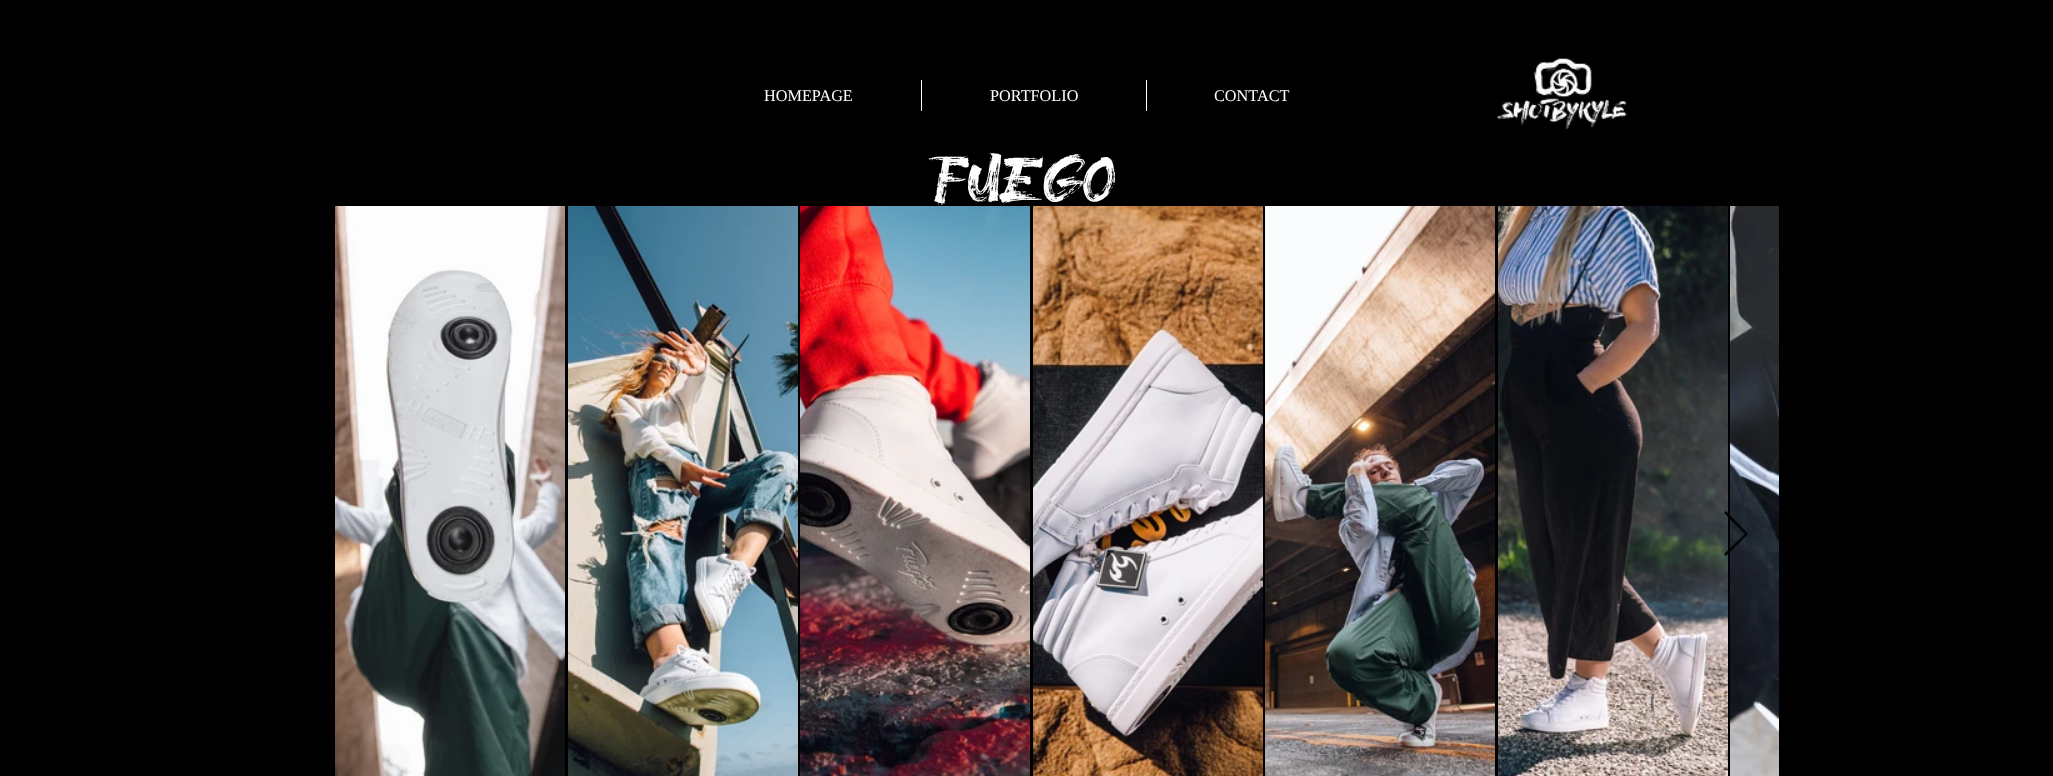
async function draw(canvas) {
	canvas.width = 2053;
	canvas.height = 776;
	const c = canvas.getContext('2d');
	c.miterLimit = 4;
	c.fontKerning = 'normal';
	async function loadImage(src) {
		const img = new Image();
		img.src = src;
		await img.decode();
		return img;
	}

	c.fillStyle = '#000';
	c.fillRect(0, 0, 2053, 776);
	c.font = '16.25px Liberation Serif';
	c.fillStyle = '#fff';
	c.fillText('HOMEPAGE', 764, 101);
	c.fillRect(921, 80, 1, 31);
	c.fillText('PORTFOLIO', 990, 101);
	c.fillRect(1146, 80, 1, 31);
	c.fillText('CONTACT', 1214, 101);
	c.drawImage(await loadImage('img1.png'), 1497, 58, 130, 72);
	c.font = '50px "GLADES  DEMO"';
	c.fillText('Fuego', 935, 201);
	c.drawImage(await loadImage('img2.png'), 335, 206, 230, 570);
	c.drawImage(await loadImage('img3.png'), 568, 206, 230, 570);
	c.drawImage(await loadImage('img4.png'), 800, 206, 230, 570);
	c.drawImage(await loadImage('img5.png'), 1033, 206, 230, 570);
	c.drawImage(await loadImage('img6.png'), 1265, 206, 230, 570);
	c.drawImage(await loadImage('img7.png'), 1498, 206, 230, 570);
	c.drawImage(await loadImage('img8.png'), 1730, 206, 49, 570);
	c.fillStyle = '#000000e6';
	c.beginPath();
	c.moveTo(1724, 513);
	c.lineTo(1726, 511);
	c.lineTo(1748, 534);
	c.lineTo(1726, 556);
	c.lineTo(1724, 554);
	c.lineTo(1745, 534);
	c.closePath();
	c.fill();
}

draw(document.querySelector('canvas'));
